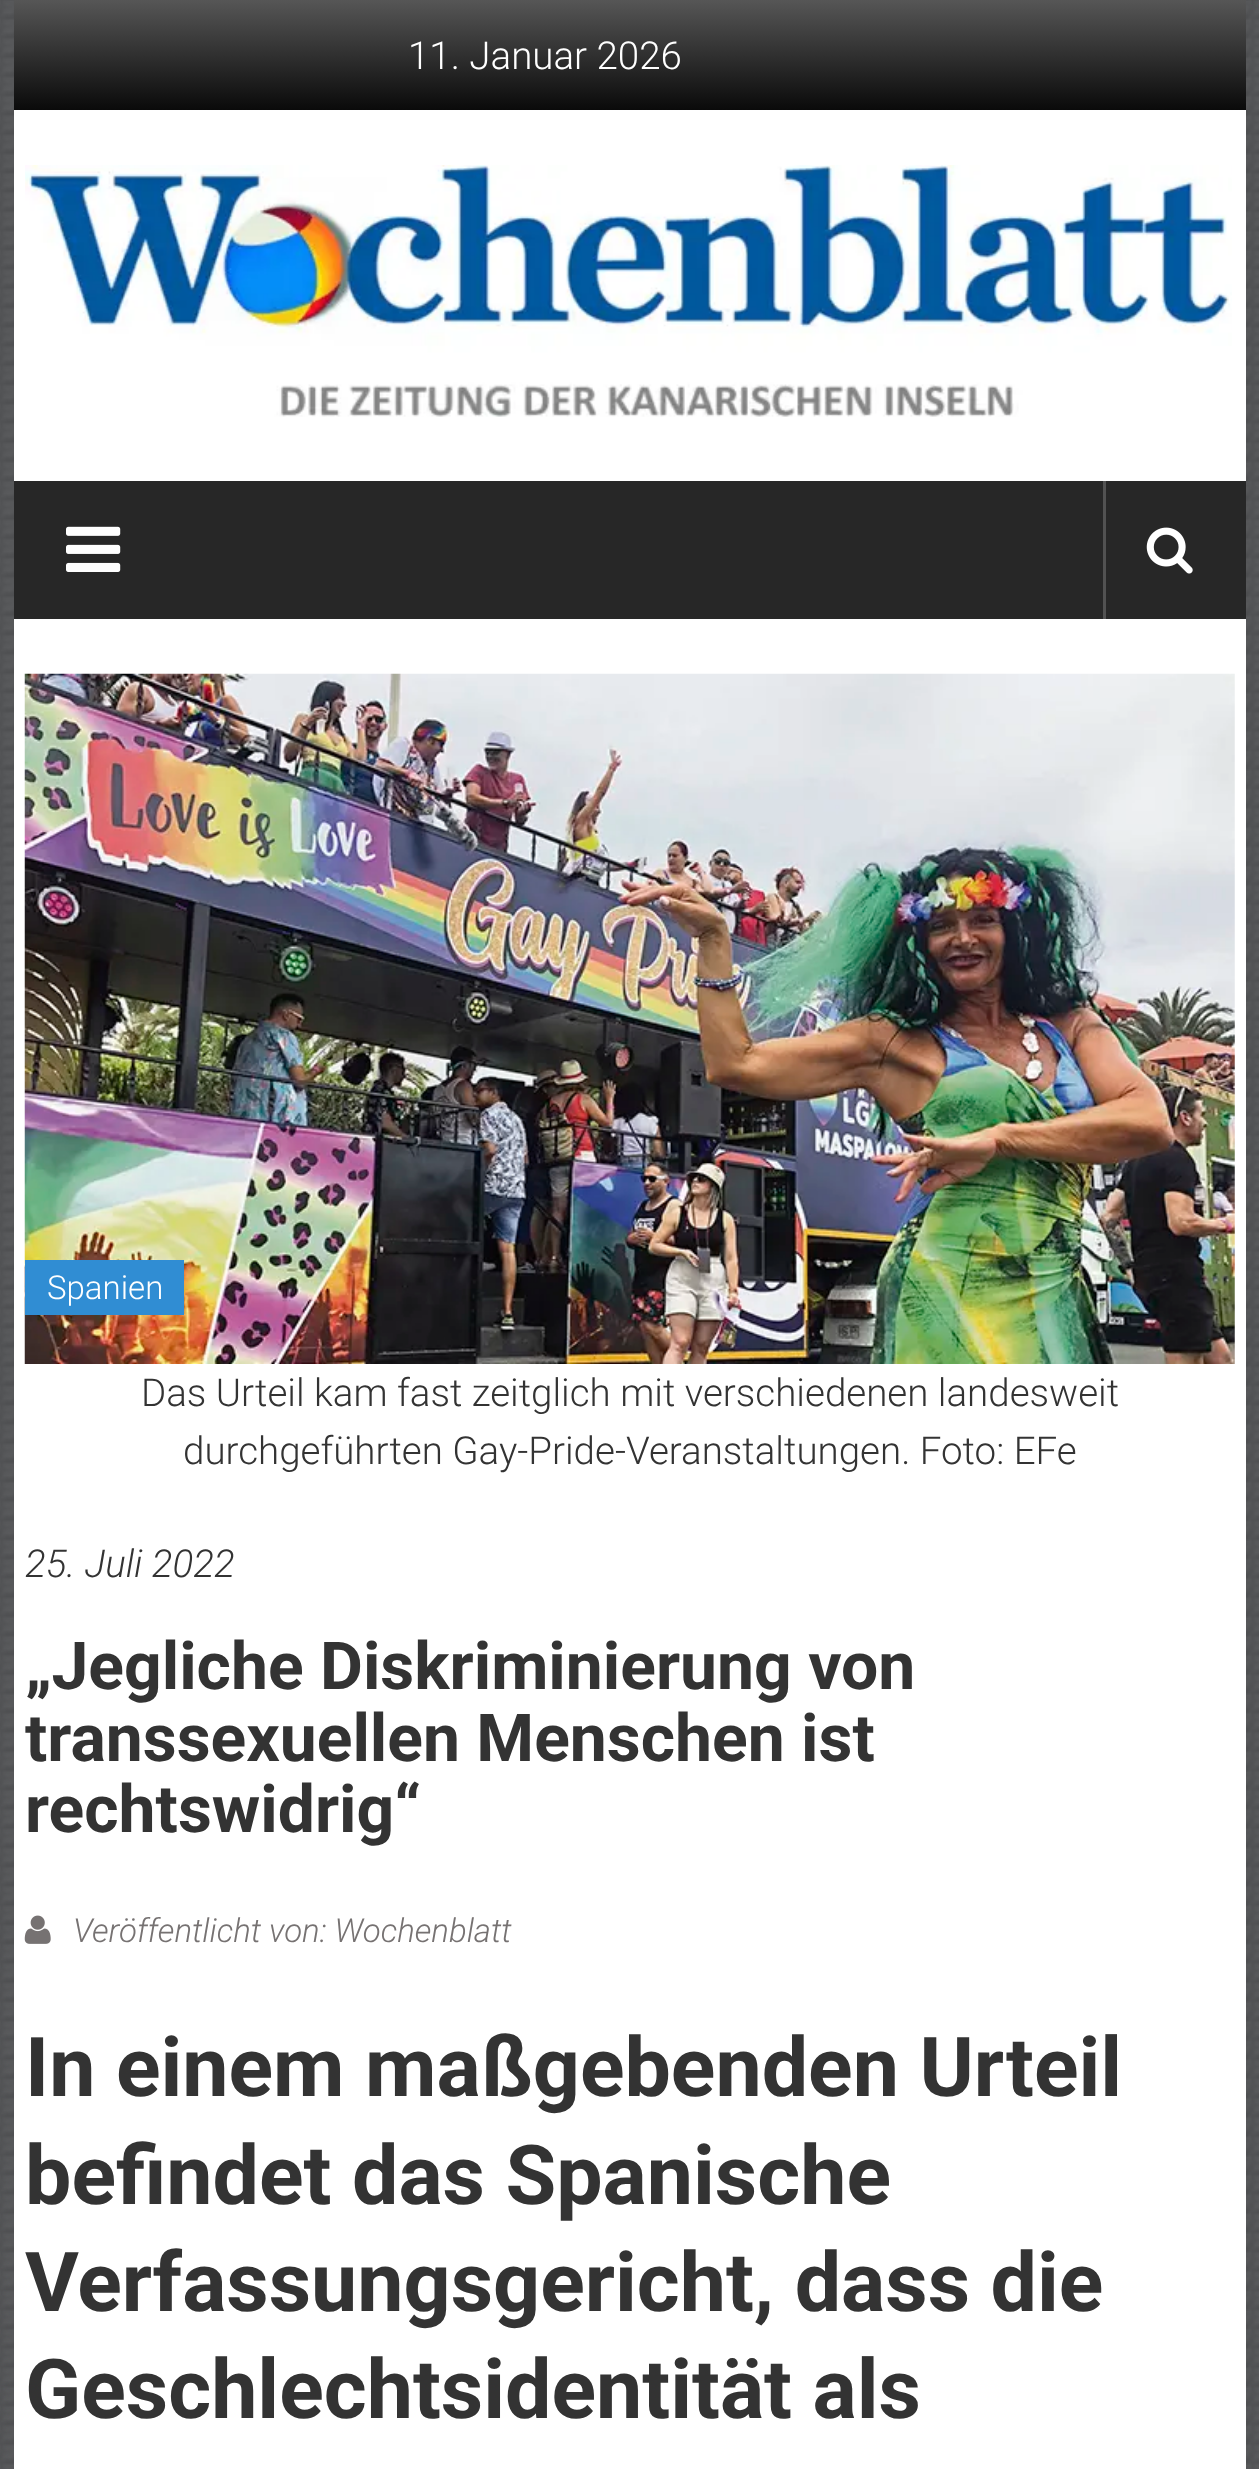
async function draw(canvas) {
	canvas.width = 1259;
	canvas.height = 2469;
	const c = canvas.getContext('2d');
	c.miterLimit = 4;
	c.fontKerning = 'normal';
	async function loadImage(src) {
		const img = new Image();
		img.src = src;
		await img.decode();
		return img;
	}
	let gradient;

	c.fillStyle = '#fff';
	c.fillRect(0, 0, 1259, 2469);
	c.drawImage(await loadImage('img1.png'), 0, 0, 1259, 2469);
	c.fillRect(14, 110, 1232, 2359);
	gradient = c.createLinearGradient(630, 0, 630, 110);
	gradient.addColorStop(0, '#565656');
	gradient.addColorStop(1, '#0a0a0a');
	c.fillStyle = gradient;
	c.fillRect(14, 0, 1232, 110);
	c.font = '300 38.5px Roboto';
	c.fillStyle = '#fff';
	c.fillText('11. Januar 2026', 408, 69);
	c.drawImage(await loadImage('img2.png'), 25, 165, 1207, 252);
	c.fillStyle = '#272727';
	c.fillRect(14, 481, 1232, 138);
	c.drawImage(await loadImage('img3.png'), 66, 526, 55, 46);
	c.fillStyle = '#525252';
	c.fillRect(1103, 481, 3, 138);
	c.drawImage(await loadImage('img4.png'), 1146, 527, 47, 47);
	c.drawImage(await loadImage('img5.png'), 24, 673, 1211, 691);
	c.fillStyle = '#308dd3';
	c.fillRect(25, 1260, 159, 55);
	c.font = '300 33px Roboto';
	c.fillStyle = '#fff';
	c.fillText('Spanien', 47, 1299);
	c.font = '300 38.5px Roboto';
	c.fillStyle = '#333';
	c.fillText('Das Urteil kam fast zeitglich mit verschiedenen landesweit', 141, 1406);
	c.fillText('durchgeführten Gay-Pride-Veranstaltungen. Foto: EFe', 183, 1464);
	c.font = 'italic 300 38.5px Roboto';
	c.fillText('25. Juli 2022', 25, 1577);
	c.font = 'bold 66px Roboto';
	for (const [text, x, y] of [
		['„Jegliche Diskriminierung von', 25, 1689],
		['transsexuellen Menschen ist', 25, 1761],
		['rechtswidrig“', 25, 1832],
	]) {
		c.fillText(text, x, y);
	}
	c.drawImage(await loadImage('img6.png'), 24, 1915, 27, 29);
	c.font = 'italic 300 33px Roboto';
	c.fillStyle = '#767272';
	c.fillText('Veröffentlicht von: Wochenblatt', 73, 1942);
	c.font = 'bold 82.5px Roboto';
	c.fillStyle = '#333';
	for (const [text, x, y] of [
		['In einem maßgebenden Urteil', 25, 2096],
		['befindet das Spanische', 25, 2204],
		['Verfassungsgericht, dass die', 25, 2311],
		['Geschlechtsidentität als', 25, 2418],
	]) {
		c.fillText(text, x, y);
	}
}

draw(document.querySelector('canvas'));
